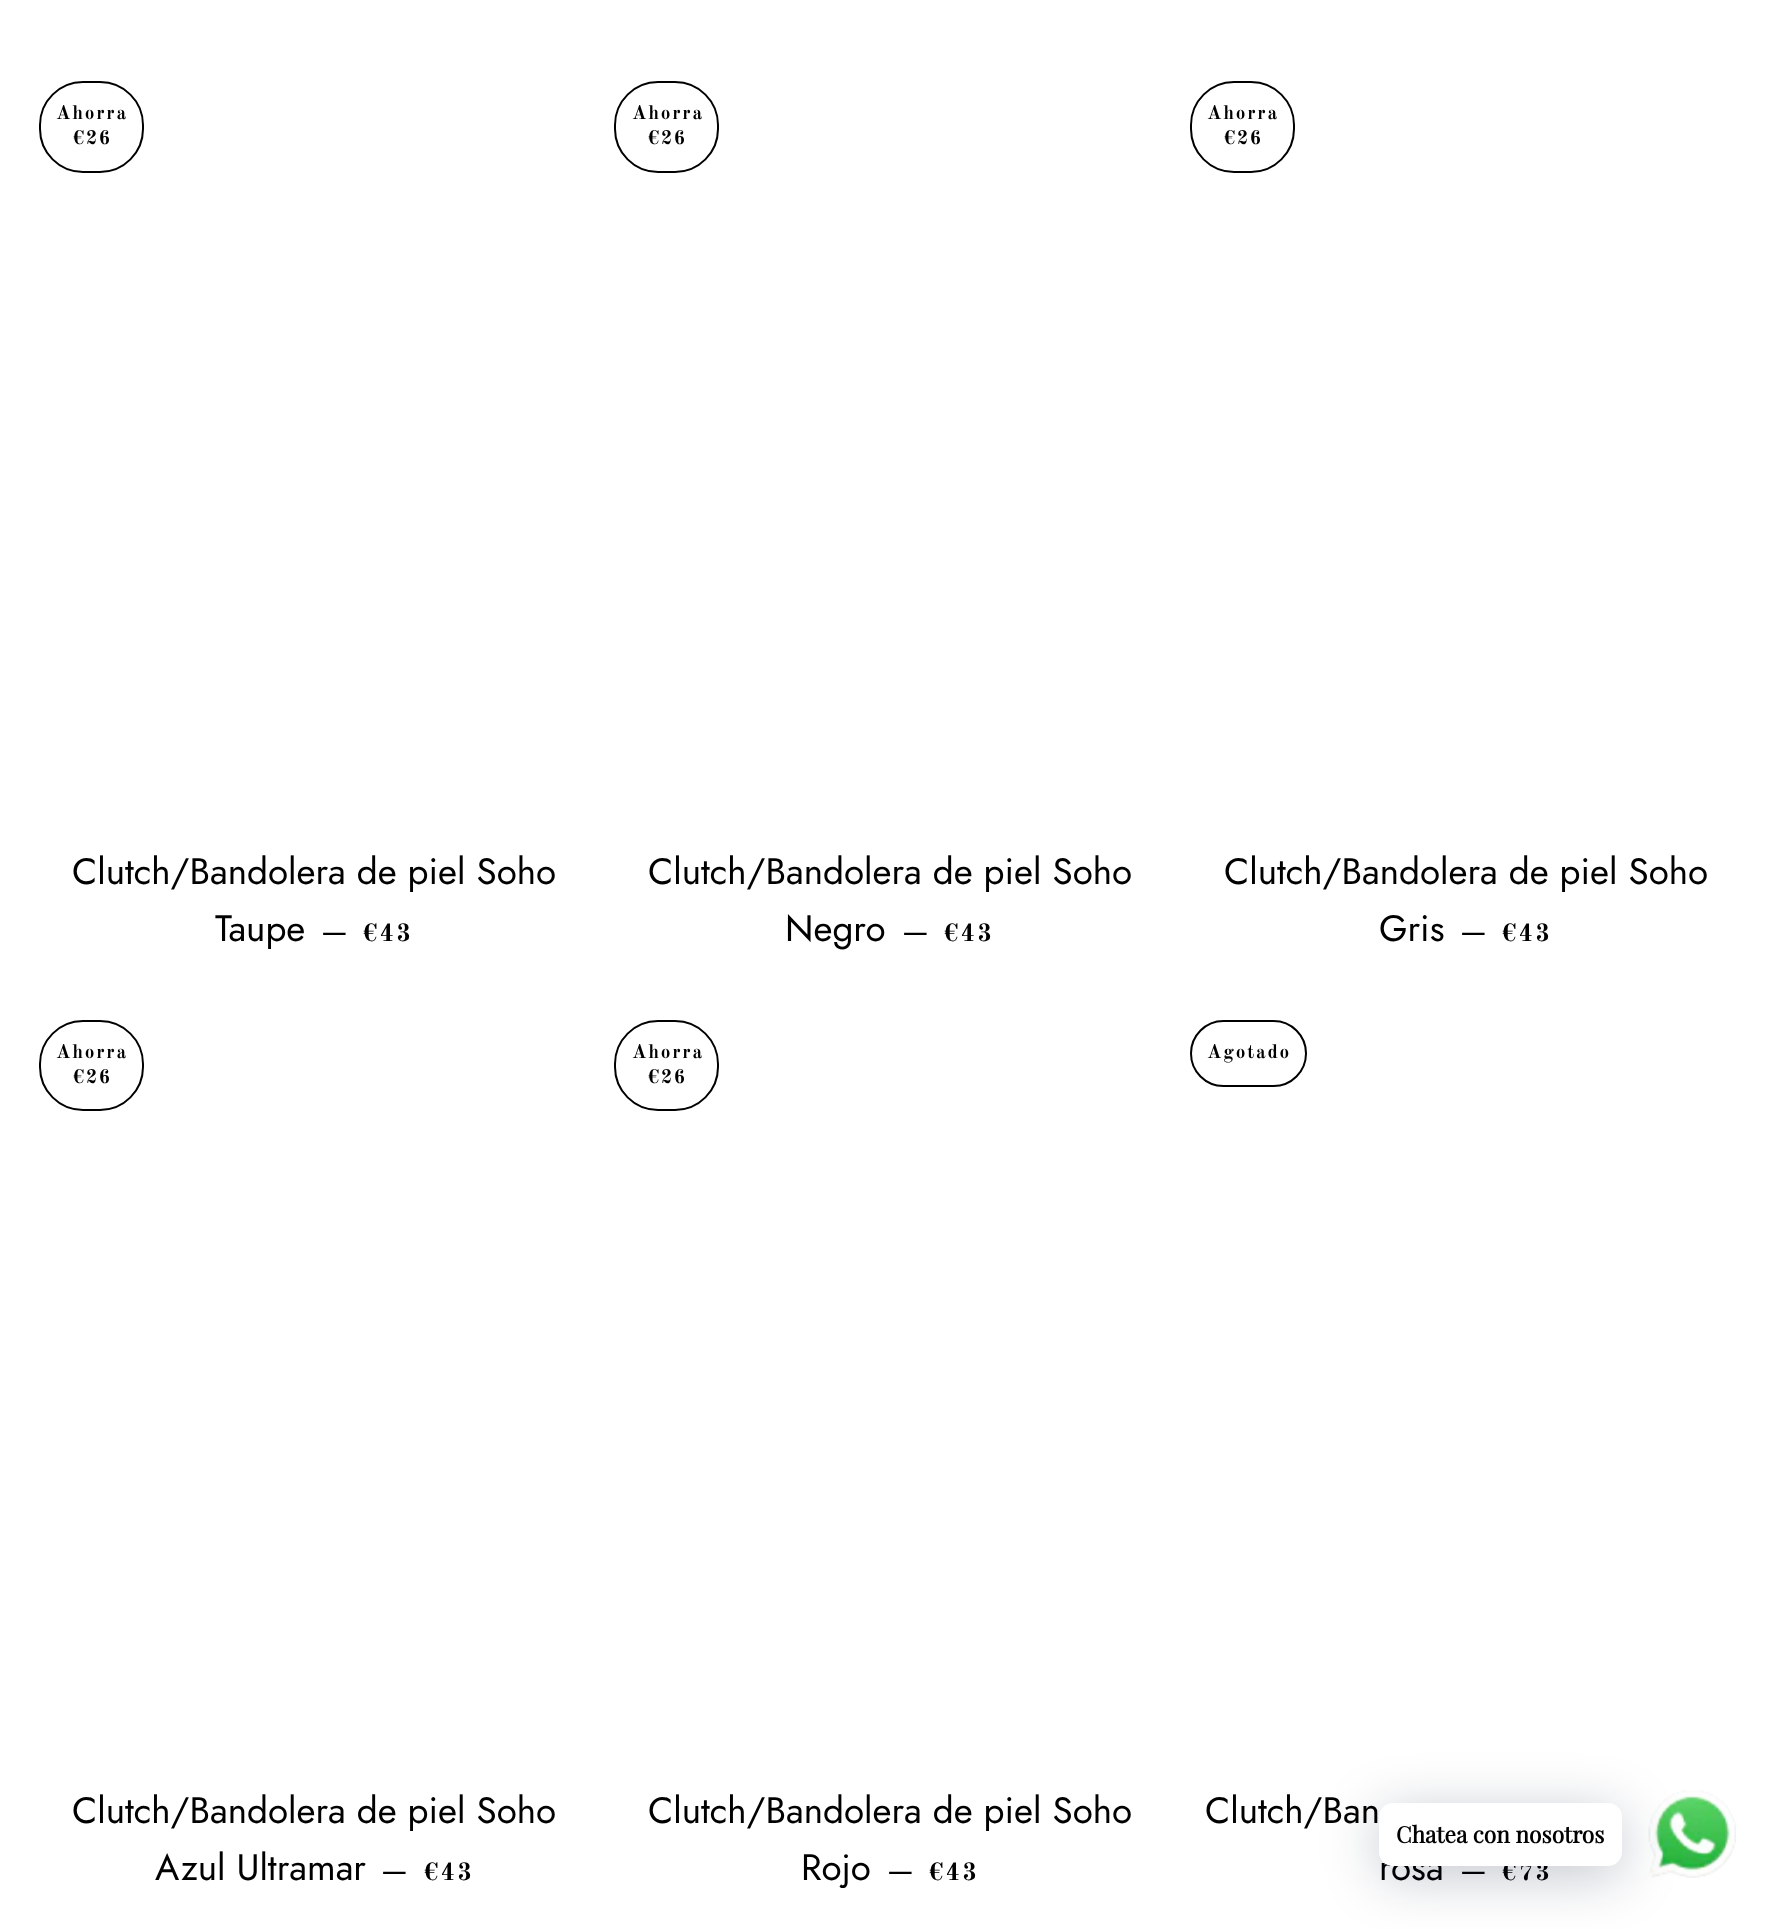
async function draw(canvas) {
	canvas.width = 1779;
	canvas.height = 1930;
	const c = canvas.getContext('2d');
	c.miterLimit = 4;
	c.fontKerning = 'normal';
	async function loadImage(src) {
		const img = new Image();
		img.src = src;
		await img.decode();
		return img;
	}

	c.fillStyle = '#fff';
	c.fillRect(0, 0, 1779, 1930);
	c.beginPath();
	c.roundRect(40, 82, 103, 90, 43);
	c.strokeStyle = '#000';
	c.lineWidth = 2;
	c.stroke();
	c.letterSpacing = '1.75px';
	c.font = 'bold 19.25px Old Standard TT';
	c.fillStyle = '#000';
	c.fillText('Ahorra', 56, 119);
	c.fillText('€26', 73, 144);
	c.letterSpacing = '0px';
	c.font = '36.75px Jost';
	c.fillText('Clutch/Bandolera de piel Soho', 72, 884);
	c.fillText('Taupe', 215, 941);
	c.font = '30px Jost';
	c.fillText('—', 321, 941);
	c.letterSpacing = '2.5px';
	c.font = 'bold 24.5px Old Standard TT';
	c.fillText('€43', 363, 941);
	c.beginPath();
	c.roundRect(615, 82, 103, 90, 43);
	c.stroke();
	c.letterSpacing = '1.75px';
	c.font = 'bold 19.25px Old Standard TT';
	c.fillText('Ahorra', 632, 119);
	c.fillText('€26', 648, 144);
	c.letterSpacing = '0px';
	c.font = '36.75px Jost';
	c.fillText('Clutch/Bandolera de piel Soho', 648, 884);
	c.fillText('Negro', 785, 941);
	c.font = '30px Jost';
	c.fillText('—', 902, 941);
	c.letterSpacing = '2.5px';
	c.font = 'bold 24.5px Old Standard TT';
	c.fillText('€43', 944, 941);
	c.beginPath();
	c.roundRect(1191, 82, 103, 90, 43);
	c.stroke();
	c.letterSpacing = '1.75px';
	c.font = 'bold 19.25px Old Standard TT';
	c.fillText('Ahorra', 1207, 119);
	c.fillText('€26', 1224, 144);
	c.letterSpacing = '0px';
	c.font = '36.75px Jost';
	c.fillText('Clutch/Bandolera de piel Soho', 1224, 884);
	c.fillText('Gris', 1379, 941);
	c.font = '30px Jost';
	c.fillText('—', 1460, 941);
	c.letterSpacing = '2.5px';
	c.font = 'bold 24.5px Old Standard TT';
	c.fillText('€43', 1502, 941);
	c.beginPath();
	c.roundRect(40, 1021, 103, 89, 43);
	c.stroke();
	c.letterSpacing = '1.75px';
	c.font = 'bold 19.25px Old Standard TT';
	c.fillText('Ahorra', 56, 1058);
	c.fillText('€26', 73, 1083);
	c.letterSpacing = '0px';
	c.font = '36.75px Jost';
	c.fillText('Clutch/Bandolera de piel Soho', 72, 1823);
	c.fillText('Azul Ultramar', 155, 1880);
	c.font = '30px Jost';
	c.fillText('—', 381, 1880);
	c.letterSpacing = '2.5px';
	c.font = 'bold 24.5px Old Standard TT';
	c.fillText('€43', 424, 1880);
	c.beginPath();
	c.roundRect(615, 1021, 103, 89, 43);
	c.stroke();
	c.letterSpacing = '1.75px';
	c.font = 'bold 19.25px Old Standard TT';
	c.fillText('Ahorra', 632, 1058);
	c.fillText('€26', 648, 1083);
	c.letterSpacing = '0px';
	c.font = '36.75px Jost';
	c.fillText('Clutch/Bandolera de piel Soho', 648, 1823);
	c.fillText('Rojo', 801, 1880);
	c.font = '30px Jost';
	c.fillText('—', 887, 1880);
	c.letterSpacing = '2.5px';
	c.font = 'bold 24.5px Old Standard TT';
	c.fillText('€43', 929, 1880);
	c.beginPath();
	c.roundRect(1191, 1021, 115, 65, 32.5);
	c.stroke();
	c.letterSpacing = '1.75px';
	c.font = 'bold 19.25px Old Standard TT';
	c.fillText('Agotado', 1207, 1058);
	c.letterSpacing = '0px';
	c.font = '36.75px Jost';
	c.fillText('Clutch/Ban', 1205, 1823);
	c.fillText('rosa', 1379, 1880);
	c.font = '30px Jost';
	c.fillText('—', 1460, 1880);
	c.letterSpacing = '2.5px';
	c.font = 'bold 24.5px Old Standard TT';
	c.fillText('€73', 1502, 1880);
	c.drawImage(await loadImage('img1.png'), 1648, 1790, 88, 88);
	c.fillStyle = '#00122e3d';
	c.filter = 'blur(28px)';
	c.beginPath();
	c.roundRect(1379, 1813, 243, 63, 14);
	c.fill();
	c.filter = 'none';
	c.fillStyle = '#fff';
	c.beginPath();
	c.roundRect(1379, 1803, 243, 63, 14);
	c.fill();
	c.letterSpacing = '0px';
	c.font = 'bold 22.75px Playfair Display';
	c.fillStyle = '#000';
	c.fillText('Chatea con nosotros', 1396, 1843);
}

draw(document.querySelector('canvas'));
